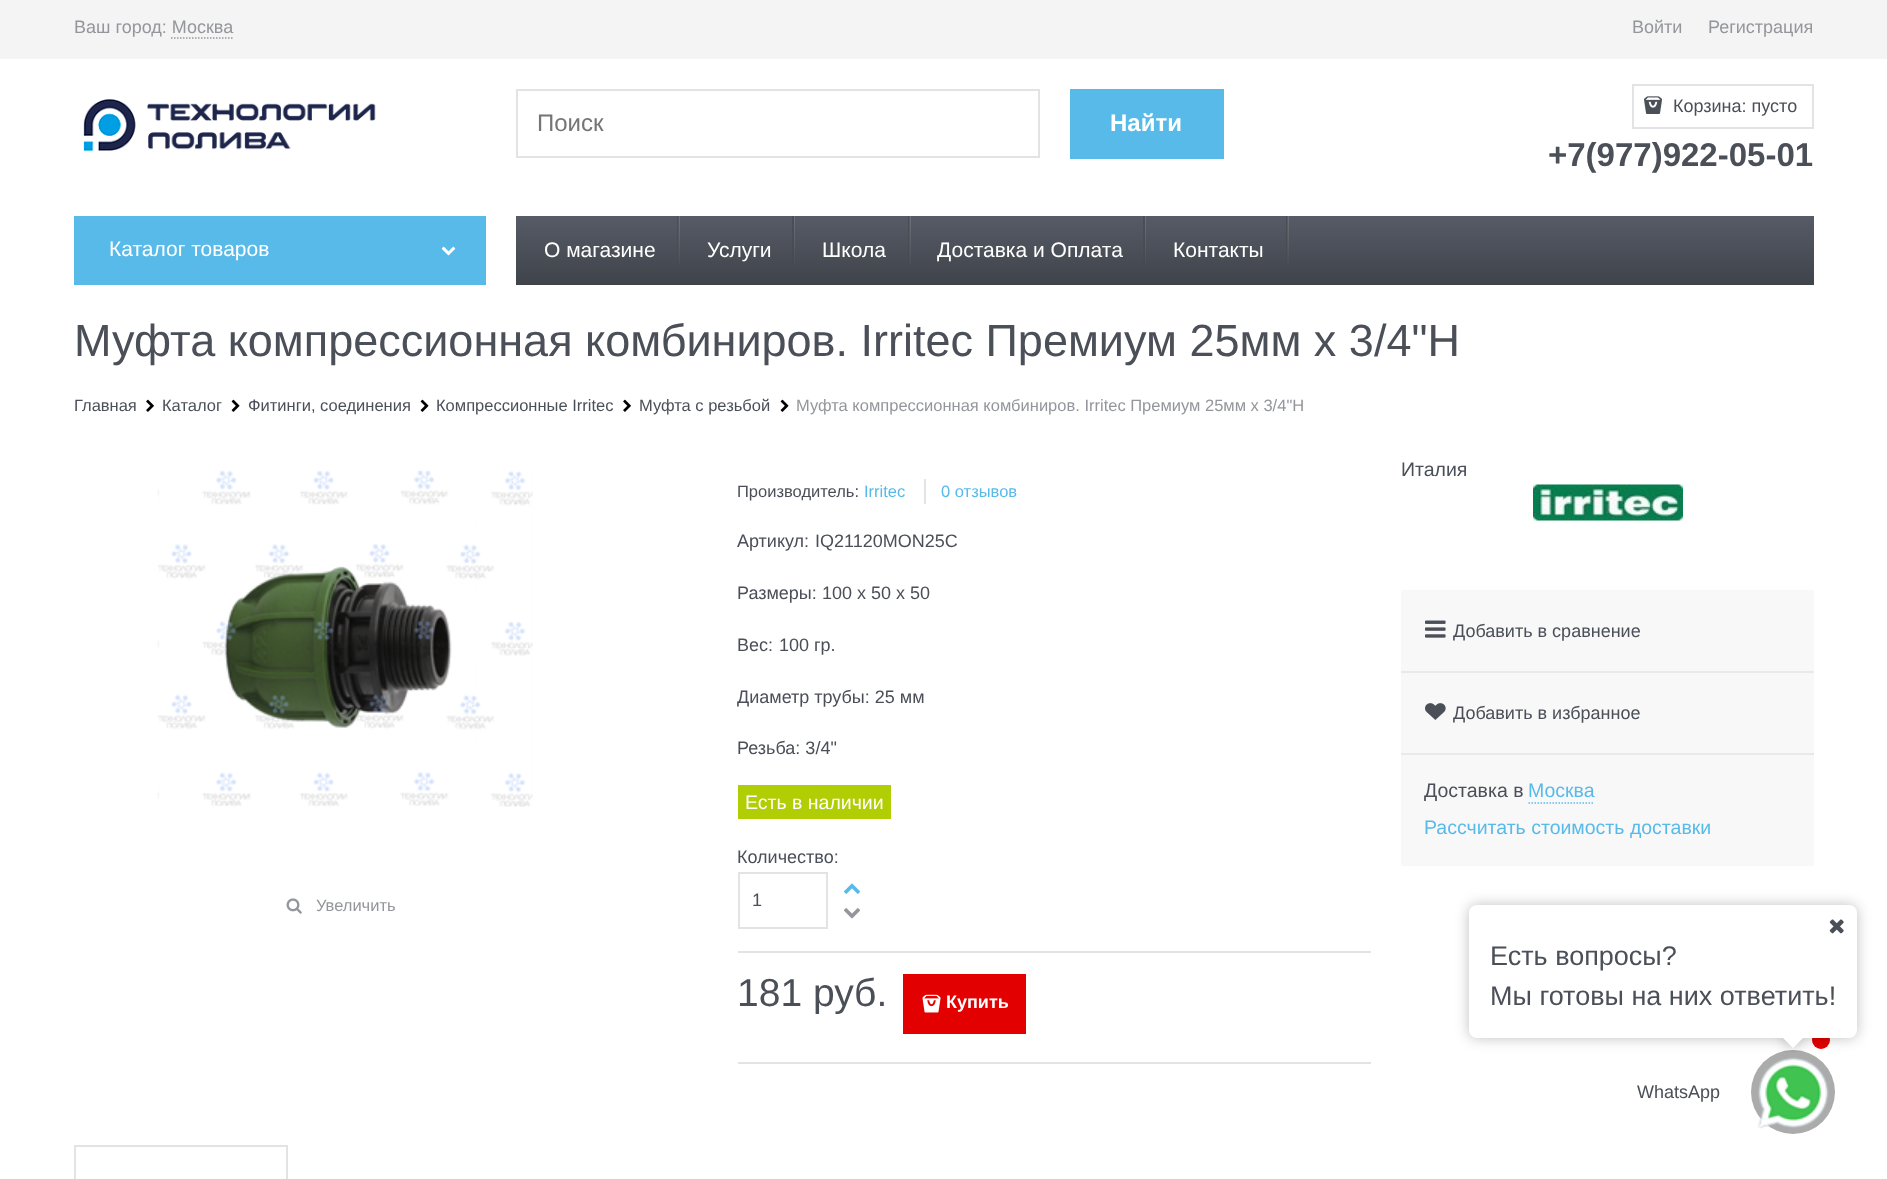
async function draw(canvas) {
	canvas.width = 1887;
	canvas.height = 1179;
	const c = canvas.getContext('2d');
	c.miterLimit = 4;
	c.fontKerning = 'normal';
	async function loadImage(src) {
		const img = new Image();
		img.src = src;
		await img.decode();
		return img;
	}
	let gradient;

	c.fillStyle = '#fff';
	c.fillRect(0, 0, 1887, 1179);
	c.fillStyle = '#f4f4f4';
	c.fillRect(0, 0, 1887, 59);
	c.font = '18px Liberation Sans';
	c.fillStyle = '#94969b';
	c.fillText('Ваш город: Москва', 74, 33);
	c.beginPath();
	c.moveTo(171, 38);
	c.lineTo(232.5, 38);
	c.strokeStyle = '#94969b';
	c.lineWidth = 1.5;
	c.setLineDash([1.5, 1.5]);
	c.stroke();
	c.fillText('Войти', 1632, 33);
	c.fillText('Регистрация', 1708, 33);
	c.drawImage(await loadImage('img1.png'), 83, 99, 293, 52);
	c.strokeStyle = '#e2e3e4';
	c.lineWidth = 2;
	c.setLineDash([]);
	c.strokeRect(517, 90, 522, 67);
	c.font = '24px Liberation Sans';
	c.fillStyle = '#757575';
	c.fillText('Поиск', 537, 131);
	c.fillStyle = '#58bae9';
	c.fillRect(1070, 89, 154, 70);
	c.font = 'bold 24px Liberation Sans';
	c.fillStyle = '#fff';
	c.fillText('Найти', 1110, 131);
	c.strokeRect(1633, 85, 180, 43);
	c.drawImage(await loadImage('img2.png'), 1644, 96, 18, 18);
	c.font = '18px Liberation Sans';
	c.fillStyle = '#4b4f58';
	c.fillText('Корзина: пусто', 1673, 112);
	c.font = 'bold 33px Liberation Sans';
	c.fillText('+7(977)922-05-01', 1548, 166);
	c.fillStyle = '#58bae9';
	c.fillRect(74, 216, 412, 69);
	c.font = '21px Liberation Sans';
	c.fillStyle = '#fff';
	c.fillText('Каталог товаров', 109, 256);
	c.drawImage(await loadImage('img3.png'), 441, 246, 15, 10);
	gradient = c.createLinearGradient(1165, 216, 1165, 285);
	gradient.addColorStop(0, '#575b66');
	gradient.addColorStop(0.5, '#4b4f58');
	gradient.addColorStop(1, '#3f434a');
	c.fillStyle = gradient;
	c.fillRect(516, 216, 1298, 69);
	c.fillStyle = '#fff';
	c.fillText('О магазине', 544, 257);
	gradient = c.createLinearGradient(679, 216, 679, 285);
	gradient.addColorStop(0, '#ffffff24');
	gradient.addColorStop(0.72, '#ffffff05');
	gradient.addColorStop(1, '#ffffff00');
	c.fillStyle = gradient;
	c.fillRect(678, 216, 2, 49);
	gradient = c.createLinearGradient(677, 216, 677, 285);
	gradient.addColorStop(0, '#39393963');
	gradient.addColorStop(0.17, '#39393954');
	gradient.addColorStop(0.61, '#3939391f');
	gradient.addColorStop(0.96, '#39393903');
	gradient.addColorStop(0.98, '#ffffff03');
	gradient.addColorStop(1, '#ffffff00');
	c.fillStyle = gradient;
	c.fillRect(677, 216, 2, 49);
	c.fillStyle = '#fff';
	c.fillText('Услуги', 707, 257);
	gradient = c.createLinearGradient(794, 216, 794, 285);
	gradient.addColorStop(0, '#ffffff24');
	gradient.addColorStop(0.72, '#ffffff05');
	gradient.addColorStop(1, '#ffffff00');
	c.fillStyle = gradient;
	c.fillRect(794, 216, 1, 49);
	gradient = c.createLinearGradient(793, 216, 793, 285);
	gradient.addColorStop(0, '#39393963');
	gradient.addColorStop(0.17, '#39393954');
	gradient.addColorStop(0.61, '#3939391f');
	gradient.addColorStop(0.96, '#39393903');
	gradient.addColorStop(0.98, '#ffffff03');
	gradient.addColorStop(1, '#ffffff00');
	c.fillStyle = gradient;
	c.fillRect(792, 216, 2, 48);
	c.fillStyle = '#fff';
	c.fillText('Школа', 822, 257);
	gradient = c.createLinearGradient(910, 216, 910, 285);
	gradient.addColorStop(0, '#ffffff24');
	gradient.addColorStop(0.72, '#ffffff05');
	gradient.addColorStop(1, '#ffffff00');
	c.fillStyle = gradient;
	c.fillRect(909, 216, 2, 49);
	gradient = c.createLinearGradient(908, 216, 908, 285);
	gradient.addColorStop(0, '#39393963');
	gradient.addColorStop(0.17, '#39393954');
	gradient.addColorStop(0.61, '#3939391f');
	gradient.addColorStop(0.96, '#39393903');
	gradient.addColorStop(0.98, '#ffffff03');
	gradient.addColorStop(1, '#ffffff00');
	c.fillStyle = gradient;
	c.fillRect(908, 216, 2, 49);
	c.fillStyle = '#fff';
	c.fillText('Доставка и Оплата', 937, 257);
	gradient = c.createLinearGradient(1145, 216, 1145, 285);
	gradient.addColorStop(0, '#ffffff24');
	gradient.addColorStop(0.72, '#ffffff05');
	gradient.addColorStop(1, '#ffffff00');
	c.fillStyle = gradient;
	c.fillRect(1145, 216, 1, 49);
	gradient = c.createLinearGradient(1144, 216, 1144, 285);
	gradient.addColorStop(0, '#39393963');
	gradient.addColorStop(0.17, '#39393954');
	gradient.addColorStop(0.61, '#3939391f');
	gradient.addColorStop(0.96, '#39393903');
	gradient.addColorStop(0.98, '#ffffff03');
	gradient.addColorStop(1, '#ffffff00');
	c.fillStyle = gradient;
	c.fillRect(1143, 216, 2, 48);
	c.fillStyle = '#fff';
	c.fillText('Контакты', 1173, 257);
	gradient = c.createLinearGradient(1288, 216, 1288, 285);
	gradient.addColorStop(0, '#ffffff24');
	gradient.addColorStop(0.72, '#ffffff05');
	gradient.addColorStop(1, '#ffffff00');
	c.fillStyle = gradient;
	c.fillRect(1287, 216, 2, 49);
	gradient = c.createLinearGradient(1286, 216, 1286, 285);
	gradient.addColorStop(0, '#39393963');
	gradient.addColorStop(0.17, '#39393954');
	gradient.addColorStop(0.61, '#3939391f');
	gradient.addColorStop(0.96, '#39393903');
	gradient.addColorStop(0.98, '#ffffff03');
	gradient.addColorStop(1, '#ffffff00');
	c.fillStyle = gradient;
	c.fillRect(1286, 216, 2, 49);
	c.font = '45px Liberation Sans';
	c.fillStyle = '#4b4f58';
	c.fillText('Муфта компрессионная комбиниров. Irritec Премиум 25мм х 3/4"Н', 74, 356);
	c.font = '16.5px Liberation Sans';
	c.fillText('Главная', 74, 411);
	c.drawImage(await loadImage('img4.png'), 146, 399, 8, 13);
	c.fillText('Каталог', 162, 411);
	c.drawImage(await loadImage('img5.png'), 231, 399, 9, 13);
	c.fillText('Фитинги, соединения', 248, 411);
	c.drawImage(await loadImage('img5.png'), 420, 399, 9, 13);
	c.fillText('Компрессионные Irritec', 436, 411);
	c.drawImage(await loadImage('img4.png'), 623, 399, 8, 13);
	c.fillText('Муфта с резьбой', 639, 411);
	c.drawImage(await loadImage('img5.png'), 780, 399, 9, 13);
	c.fillStyle = '#94969b';
	c.fillText('Муфта компрессионная комбиниров. Irritec Премиум 25мм х 3/4"Н', 796, 411);
	c.drawImage(await loadImage('img6.png'), 157, 470, 376, 337);
	c.drawImage(await loadImage('img7.png'), 286, 898, 16, 16);
	c.fillText('Увеличить', 316, 911);
	c.fillStyle = '#4b4f58';
	c.fillText('Производитель:', 737, 497);
	c.fillStyle = '#58bae9';
	c.fillText('Irritec', 864, 497);
	c.fillStyle = '#e2e3e4';
	c.fillRect(924, 479, 2, 25);
	c.fillStyle = '#58bae9';
	c.fillText('0 отзывов', 941, 497);
	c.font = '18px Liberation Sans';
	c.fillStyle = '#4b4f58';
	for (const [text, x, y] of [
		['Артикул:', 737, 547],
		['IQ21120MON25C', 815, 547],
		['Размеры:', 737, 599],
		['100 x 50 x 50', 822, 599],
		['Вес:', 737, 651],
		['100 гр.', 779, 651],
		['Диаметр трубы: 25 мм', 737, 703],
		['Резьба: 3/4"', 737, 754],
	]) {
		c.fillText(text, x, y);
	}
	c.fillStyle = '#b1cd03';
	c.fillRect(738, 785, 153, 34);
	c.font = '19.5px Liberation Sans';
	c.fillStyle = '#fff';
	c.fillText('Есть в наличии', 745, 809);
	c.font = '18px Liberation Sans';
	c.fillStyle = '#4b4f58';
	c.fillText('Количество:', 737, 863);
	c.strokeRect(739, 873, 88, 55);
	c.fillText('1', 752, 906);
	c.drawImage(await loadImage('img8.png'), 844, 883, 16, 11);
	c.drawImage(await loadImage('img9.png'), 844, 908, 16, 11);
	c.fillStyle = '#e2e3e4';
	c.fillRect(738, 951, 633, 2);
	c.fillRect(738, 1062, 633, 2);
	c.font = '39px Liberation Sans';
	c.fillStyle = '#4b4f58';
	c.fillText('181 руб.', 737, 1006);
	c.fillStyle = '#e20000';
	c.fillRect(903, 974, 123, 60);
	c.drawImage(await loadImage('img10.png'), 922, 994, 19, 19);
	c.font = 'bold 18px Liberation Sans';
	c.fillStyle = '#fff';
	c.fillText('Купить', 946, 1008);
	c.strokeRect(75, 1146, 212, 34);
	c.font = '19.5px Liberation Sans';
	c.fillStyle = '#4b4f58';
	c.fillText('Италия', 1401, 476);
	c.drawImage(await loadImage('img11.png'), 1533, 484, 150, 37);
	c.fillStyle = '#f8f8f8';
	c.fillRect(1401, 590, 413, 276);
	c.fillStyle = '#e9e9e9';
	c.fillRect(1401, 671, 413, 2);
	c.drawImage(await loadImage('img12.png'), 1425, 620, 21, 18);
	c.font = '18px Liberation Sans';
	c.fillStyle = '#4b4f58';
	c.fillText('Добавить в сравнение', 1453, 637);
	c.fillStyle = '#e9e9e9';
	c.fillRect(1401, 753, 413, 2);
	c.drawImage(await loadImage('img13.png'), 1425, 703, 21, 17);
	c.fillStyle = '#4b4f58';
	c.fillText('Добавить в избранное', 1453, 719);
	c.font = '19.5px Liberation Sans';
	c.fillText('Доставка в', 1424, 797);
	c.fillStyle = '#58bae9';
	c.fillText('Москва', 1528, 797);
	c.beginPath();
	c.moveTo(1528.5, 803);
	c.lineTo(1594.5, 803);
	c.strokeStyle = '#58bae9';
	c.lineWidth = 1.5;
	c.setLineDash([1.5, 1.5]);
	c.stroke();
	c.fillText('Рассчитать стоимость доставки', 1424, 834);
	c.fillStyle = '#e40001';
	c.beginPath();
	c.arc(1821, 1040, 9, 0, 2 * Math.PI);
	c.fill();
	c.fillStyle = '#ababab';
	c.beginPath();
	c.arc(1793, 1092, 42, 0, 2 * Math.PI);
	c.fill();
	c.drawImage(await loadImage('img15.png'), 1757, 1057, 72, 72);
	c.fillStyle = '#00000040';
	c.filter = 'blur(7px)';
	c.beginPath();
	c.roundRect(1469, 905, 388, 133, 8);
	c.fill();
	c.filter = 'none';
	c.fillStyle = '#fff';
	c.beginPath();
	c.roundRect(1469, 905, 388, 133, 8);
	c.fill();
	c.drawImage(await loadImage('img14.png'), 1829, 919, 15, 15);
	c.font = '27px Liberation Sans';
	c.fillStyle = '#4b4f58';
	c.fillText('Есть вопросы?', 1490, 965);
	c.fillText('Мы готовы на них ответить!', 1490, 1005);
	c.save();
	c.beginPath();
	c.rect(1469, 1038, 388, 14);
	c.clip();
	c.fillStyle = '#00000040';
	c.filter = 'blur(7px)';
	c.beginPath();
	c.rect(1785, 1031, 15, 15);
	c.fill();
	c.filter = 'none';
	c.restore();
	c.save();
	c.beginPath();
	c.rect(1469, 1038, 388, 14);
	c.clip();
	c.fillStyle = '#fff';
	c.beginPath();
	c.moveTo(1793, 1027);
	c.lineTo(1803.5, 1037.5);
	c.lineTo(1793, 1048);
	c.lineTo(1782.5, 1037.5);
	c.closePath();
	c.fill();
	c.restore();
	c.font = '18px Liberation Sans';
	c.fillText('WhatsApp', 1637, 1098);
}

draw(document.querySelector('canvas'));
